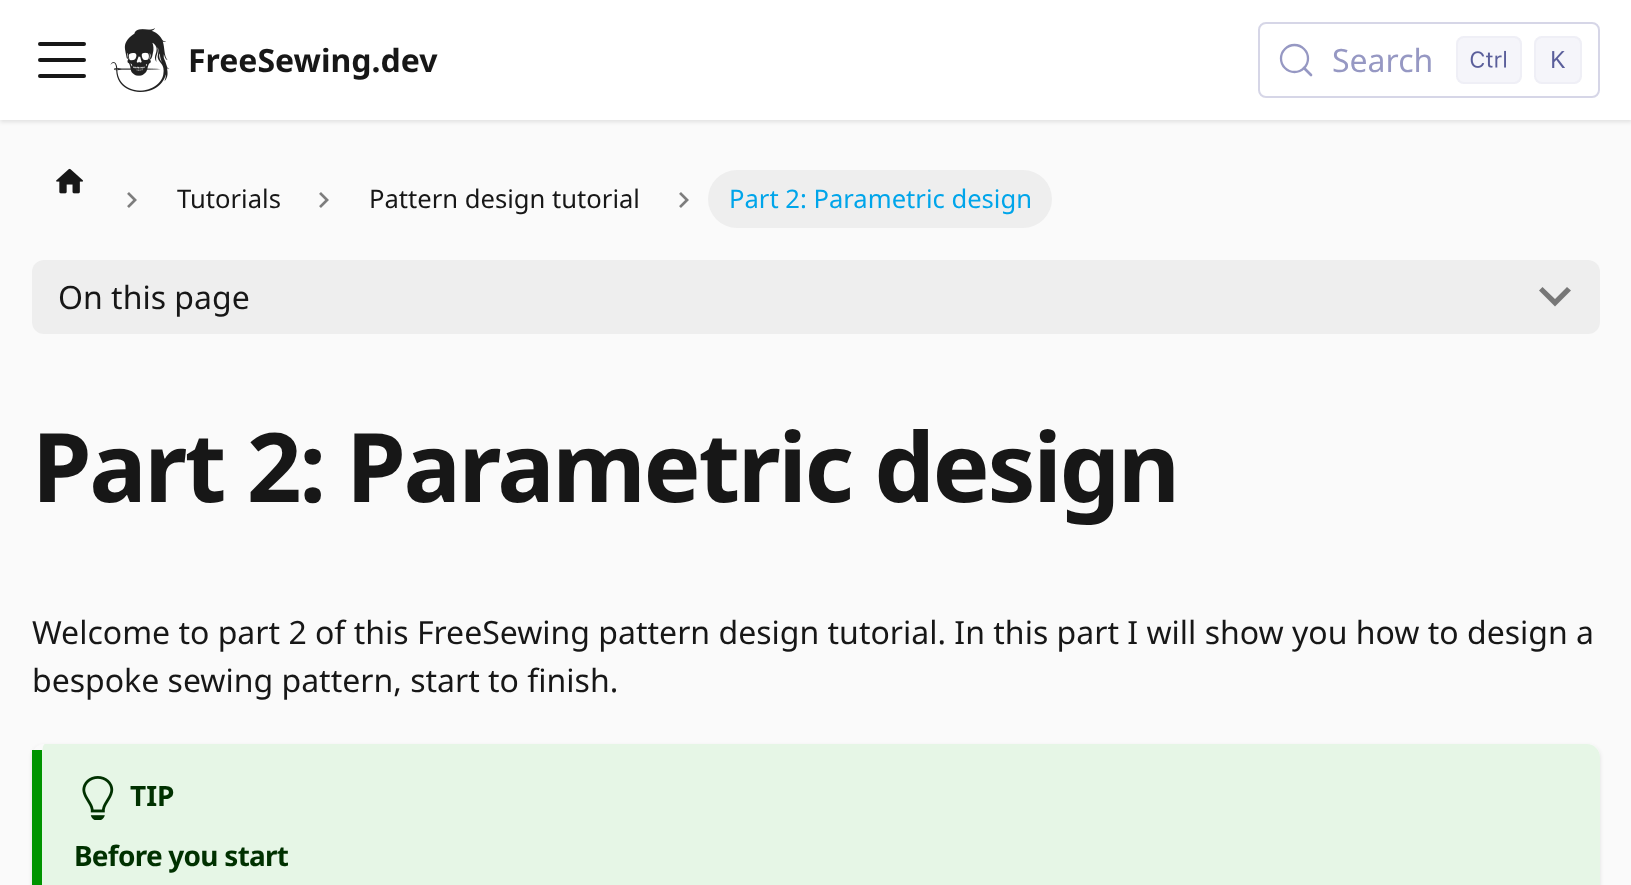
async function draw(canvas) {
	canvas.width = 1631;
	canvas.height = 885;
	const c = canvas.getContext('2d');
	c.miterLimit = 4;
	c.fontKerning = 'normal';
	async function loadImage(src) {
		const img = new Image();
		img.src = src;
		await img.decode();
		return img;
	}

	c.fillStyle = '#fafafa';
	c.fillRect(0, 0, 1631, 885);
	c.fillStyle = '#0000001a';
	c.filter = 'blur(2px)';
	c.beginPath();
	c.rect(0, 2, 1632, 120);
	c.fill();
	c.filter = 'none';
	c.fillStyle = '#fff';
	c.fillRect(0, 0, 1631, 120);
	c.beginPath();
	c.moveTo(40, 44);
	c.lineTo(84, 44);
	c.moveTo(40, 60);
	c.lineTo(84, 60);
	c.moveTo(40, 76);
	c.lineTo(84, 76);
	c.strokeStyle = '#171717';
	c.lineWidth = 4;
	c.lineCap = 'round';
	c.stroke();
	c.drawImage(await loadImage('img1.png'), 110, 28, 60, 64);
	c.font = 'bold 32px Noto Sans';
	c.fillStyle = '#171717';
	c.fillText('FreeSewing.dev', 188, 72);
	c.beginPath();
	c.roundRect(1259, 23, 340, 74, 7);
	c.strokeStyle = '#d6d6e7';
	c.lineWidth = 2;
	c.stroke();
	c.beginPath();
	c.arc(1294.5, 58.5, 13.5, 0, 2 * Math.PI);
	c.strokeStyle = '#9698c3';
	c.lineWidth = 2.3;
	c.stroke();
	c.beginPath();
	c.moveTo(1311, 75);
	c.lineTo(1304, 68);
	c.lineWidth = 2.7;
	c.lineJoin = 'round';
	c.stroke();
	c.font = '32px Noto Sans';
	c.fillStyle = '#9698c3';
	c.fillText('Search', 1332, 72);
	c.fillStyle = '#f5f5fa';
	c.beginPath();
	c.roundRect(1456, 36, 66, 48, 8);
	c.fill();
	c.beginPath();
	c.roundRect(1457, 37, 64, 46, 7);
	c.strokeStyle = '#d6d6e733';
	c.lineWidth = 2;
	c.lineJoin = 'miter';
	c.stroke();
	c.drawImage(await loadImage('img2.png'), 1470, 50, 36, 18);
	c.beginPath();
	c.roundRect(1534, 36, 48, 48, 8);
	c.fill();
	c.beginPath();
	c.roundRect(1535, 37, 46, 46, 7);
	c.stroke();
	c.drawImage(await loadImage('img3.png'), 1552, 51, 13, 17);
	c.drawImage(await loadImage('img4.png'), 56, 168, 27, 26);
	c.drawImage(await loadImage('img5.png'), 127, 192, 10, 16);
	c.font = '25.6px Noto Sans';
	c.fillStyle = '#171717';
	c.fillText('Tutorials', 177, 208);
	c.drawImage(await loadImage('img5.png'), 319, 192, 10, 16);
	c.fillText('Pattern design tutorial', 369, 208);
	c.drawImage(await loadImage('img5.png'), 679, 192, 10, 16);
	c.fillStyle = '#eee';
	c.beginPath();
	c.roundRect(708, 170, 344, 58, 29);
	c.fill();
	c.fillStyle = '#00a5ea';
	c.fillText('Part 2: Parametric design', 729, 208);
	c.fillStyle = '#eee';
	c.beginPath();
	c.roundRect(32, 260, 1568, 74, 12);
	c.fill();
	c.font = '32px Noto Sans';
	c.fillStyle = '#171717';
	c.fillText('On this page', 58, 309);
	c.fillStyle = '#777';
	c.beginPath();
	c.moveTo(1567, 287);
	c.lineTo(1555, 299);
	c.lineTo(1542.5, 287);
	c.lineTo(1539, 290.5);
	c.lineTo(1555, 306.5);
	c.lineTo(1571, 290.5);
	c.closePath();
	c.fill();
	c.letterSpacing = '-2.4px';
	c.font = 'bold 96px Noto Sans';
	c.fillStyle = '#171717';
	c.fillText('Part 2: Parametric design', 32, 502);
	c.letterSpacing = '0px';
	c.font = '32px Noto Sans';
	c.fillText('Welcome to part 2 of this FreeSewing pattern design tutorial. In this part I will show you how to design a', 32, 644);
	c.fillText('bespoke sewing pattern, start to finish.', 32, 692);
	c.save();
	c.beginPath();
	c.moveTo(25, 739);
	c.lineTo(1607, 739);
	c.lineTo(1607, 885);
	c.lineTo(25, 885);
	c.closePath();
	c.moveTo(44, 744);
	c.lineTo(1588, 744);
	c.bezierCurveTo(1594.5, 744, 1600, 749.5, 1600, 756);
	c.lineTo(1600, 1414);
	c.bezierCurveTo(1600, 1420.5, 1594.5, 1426, 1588, 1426);
	c.lineTo(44, 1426);
	c.bezierCurveTo(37.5, 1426, 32, 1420.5, 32, 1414);
	c.lineTo(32, 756);
	c.bezierCurveTo(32, 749.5, 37.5, 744, 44, 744);
	c.closePath();
	c.clip('evenodd');
	c.fillStyle = '#0000001a';
	c.filter = 'blur(2px)';
	c.beginPath();
	c.roundRect(32, 746, 1568, 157, 12);
	c.fill();
	c.filter = 'none';
	c.restore();
	c.fillStyle = '#e6f6e6';
	c.beginPath();
	c.moveTo(45, 744);
	c.lineTo(1587, 744);
	c.bezierCurveTo(1594, 744, 1600, 750, 1600, 757);
	c.lineTo(1600, 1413);
	c.bezierCurveTo(1600, 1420, 1594, 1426, 1587, 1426);
	c.lineTo(45, 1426);
	c.bezierCurveTo(43, 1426, 42, 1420, 42, 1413);
	c.lineTo(42, 757);
	c.bezierCurveTo(42, 750, 43, 744, 45, 744);
	c.closePath();
	c.fill();
	c.fillStyle = '#009400';
	c.fillRect(32, 750, 10, 135);
	c.drawImage(await loadImage('img6.png'), 82, 776, 32, 44);
	c.font = 'bold 28px Noto Sans';
	c.fillStyle = '#003100';
	c.fillText('TIP', 130, 806);
	c.letterSpacing = '-0.75px';
	c.fillText('Before you start', 74, 866);
}

draw(document.querySelector('canvas'));
